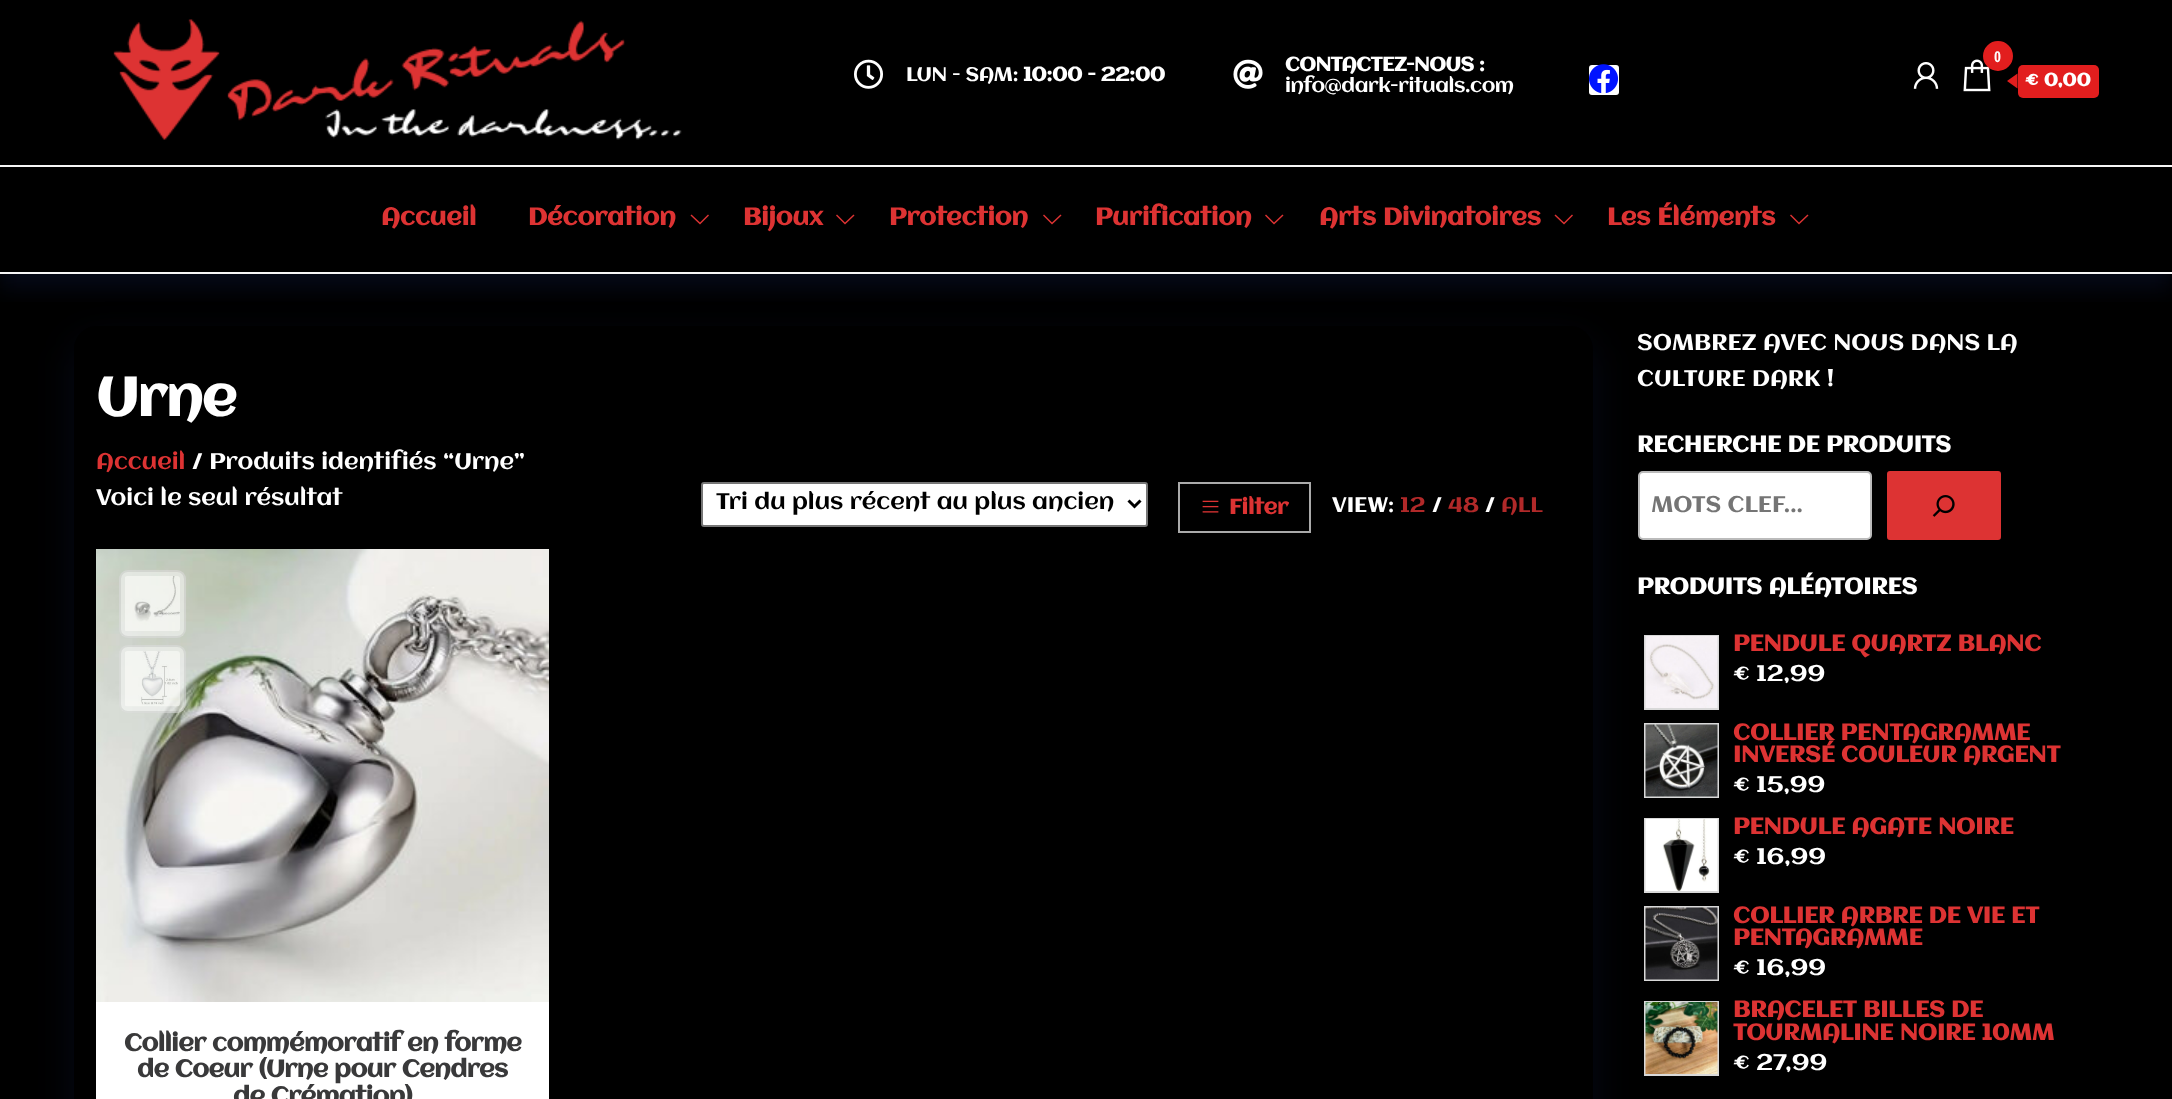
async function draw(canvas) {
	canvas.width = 2172;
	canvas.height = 1099;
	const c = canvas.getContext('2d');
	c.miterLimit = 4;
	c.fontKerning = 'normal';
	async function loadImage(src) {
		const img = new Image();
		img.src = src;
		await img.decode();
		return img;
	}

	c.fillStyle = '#000';
	c.fillRect(0, 0, 2172, 1099);
	c.save();
	c.beginPath();
	c.rect(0, 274, 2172, 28);
	c.clip();
	c.fillStyle = '#192d7833';
	c.filter = 'blur(11px)';
	c.beginPath();
	c.rect(0, 182, 2172, 106);
	c.fill();
	c.filter = 'none';
	c.restore();
	c.fillStyle = '#f6f6f6';
	c.fillRect(0, 165, 2172, 2);
	c.drawImage(await loadImage('img1.png'), 113, 19, 569, 121);
	c.drawImage(await loadImage('img2.png'), 854, 59, 29, 30);
	c.letterSpacing = '-0.45px';
	c.font = '19.5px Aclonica';
	c.fillStyle = '#fff';
	c.fillText('LUN - SAM:', 906, 81);
	c.font = 'bold 19.5px Aclonica';
	c.fillText('10:00 - 22:00', 1023, 81);
	c.drawImage(await loadImage('img3.png'), 1233, 59, 30, 30);
	c.fillText('CONTACTEZ-NOUS :', 1285, 71);
	c.font = '19.5px Aclonica';
	c.fillText('info@dark-rituals.com', 1285, 92);
	c.beginPath();
	c.roundRect(1589, 65, 30, 30, 3);
	c.fill();
	c.drawImage(await loadImage('img4.png'), 1589, 64, 29, 29);
	c.drawImage(await loadImage('img5.png'), 1913, 62, 26, 27);
	c.drawImage(await loadImage('img6.png'), 1963, 59, 28, 33);
	c.fillStyle = '#e21e1e';
	c.beginPath();
	c.arc(1998, 56, 14, 0, 2 * Math.PI);
	c.fill();
	c.strokeStyle = '#e21e1e';
	c.lineWidth = 2;
	c.stroke();
	c.letterSpacing = '0px';
	c.font = 'bold 15px Open Sans Condensed';
	c.fillStyle = '#fff';
	c.fillText('0', 1994, 62);
	c.fillStyle = '#e21e1e';
	c.beginPath();
	c.roundRect(2018, 65, 81, 33, 5);
	c.fill();
	c.beginPath();
	c.moveTo(2017.5, 73.5);
	c.lineTo(2017.5, 88.5);
	c.lineTo(2007, 81);
	c.closePath();
	c.fill();
	c.font = 'bold 18px Aclonica';
	c.fillStyle = '#fff';
	c.fillText('€ 0,00', 2025, 86);
	c.fillStyle = '#f6f6f6';
	c.fillRect(0, 272, 2172, 2);
	c.font = 'bold 24px Aclonica';
	c.fillStyle = '#d33';
	c.fillText('Accueil', 381, 225);
	c.fillText('Décoration', 528, 225);
	c.beginPath();
	c.moveTo(691.5, 214.5);
	c.lineTo(690.5, 215.5);
	c.lineTo(700, 224.5);
	c.lineTo(709, 215.5);
	c.lineTo(708, 214.5);
	c.lineTo(700, 222.5);
	c.closePath();
	c.fill();
	c.fillText('Bijoux', 743, 225);
	c.beginPath();
	c.moveTo(837, 214.5);
	c.lineTo(836, 215.5);
	c.lineTo(845, 224.5);
	c.lineTo(854.5, 215.5);
	c.lineTo(853.5, 214.5);
	c.lineTo(845, 222.5);
	c.closePath();
	c.fill();
	c.fillText('Protection', 889, 225);
	c.beginPath();
	c.moveTo(1044, 214.5);
	c.lineTo(1043, 215.5);
	c.lineTo(1052, 224.5);
	c.lineTo(1061.5, 215.5);
	c.lineTo(1060.5, 214.5);
	c.lineTo(1052, 222.5);
	c.closePath();
	c.fill();
	c.fillText('Purification', 1095, 225);
	c.beginPath();
	c.moveTo(1266, 214.5);
	c.lineTo(1265, 215.5);
	c.lineTo(1274, 224.5);
	c.lineTo(1283.5, 215.5);
	c.lineTo(1282.5, 214.5);
	c.lineTo(1274, 222.5);
	c.closePath();
	c.fill();
	c.fillText('Arts Divinatoires', 1319, 225);
	c.beginPath();
	c.moveTo(1555.5, 214.5);
	c.lineTo(1554.5, 215.5);
	c.lineTo(1564, 224.5);
	c.lineTo(1573, 215.5);
	c.lineTo(1572, 214.5);
	c.lineTo(1564, 222.5);
	c.closePath();
	c.fill();
	c.fillText('Les Éléments', 1607, 225);
	c.beginPath();
	c.moveTo(1791, 214.5);
	c.lineTo(1790, 215.5);
	c.lineTo(1799, 224.5);
	c.lineTo(1808.5, 215.5);
	c.lineTo(1807.5, 214.5);
	c.lineTo(1799, 222.5);
	c.closePath();
	c.fill();
	c.save();
	c.beginPath();
	c.moveTo(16, 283);
	c.lineTo(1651, 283);
	c.lineTo(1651, 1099);
	c.lineTo(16, 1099);
	c.closePath();
	c.moveTo(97, 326);
	c.lineTo(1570, 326);
	c.bezierCurveTo(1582.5, 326, 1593, 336.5, 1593, 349);
	c.lineTo(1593, 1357);
	c.bezierCurveTo(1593, 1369.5, 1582.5, 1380, 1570, 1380);
	c.lineTo(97, 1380);
	c.bezierCurveTo(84.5, 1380, 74, 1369.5, 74, 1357);
	c.lineTo(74, 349);
	c.bezierCurveTo(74, 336.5, 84.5, 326, 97, 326);
	c.closePath();
	c.clip('evenodd');
	c.fillStyle = '#192d6e33';
	c.filter = 'blur(19px)';
	c.beginPath();
	c.roundRect(74, 341, 1519, 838, 23);
	c.fill();
	c.filter = 'none';
	c.restore();
	c.letterSpacing = '-1px';
	c.font = 'bold 54px Aclonica';
	c.fillStyle = '#fff';
	c.fillText('Urne', 96, 416);
	c.letterSpacing = '0px';
	c.font = '22.5px Aclonica';
	c.fillStyle = '#d33';
	c.fillText('Accueil', 96, 469);
	c.fillStyle = '#fff';
	c.fillText('/ Produits identifiés “Urne”', 192, 469);
	c.fillText('Voici le seul résultat', 96, 505);
	c.beginPath();
	c.roundRect(702, 483, 445, 43, 2);
	c.fill();
	c.strokeStyle = '#767676';
	c.stroke();
	c.beginPath();
	c.moveTo(1128.5, 500.5);
	c.lineTo(1134.5, 506.5);
	c.lineTo(1140.5, 500.5);
	c.strokeStyle = '#000';
	c.lineWidth = 3;
	c.stroke();
	c.save();
	c.beginPath();
	c.rect(716, 491, 399, 27);
	c.clip();
	c.fillStyle = '#000';
	c.fillText('Tri du plus récent au plus ancien', 716, 509);
	c.restore();
	c.strokeStyle = '#aaa';
	c.lineWidth = 2;
	c.strokeRect(1179, 483, 131, 49);
	c.drawImage(await loadImage('img7.png'), 1202, 500, 17, 13);
	c.font = 'bold 21px Aclonica';
	c.fillStyle = '#d33';
	c.fillText('Filter', 1229, 514);
	c.font = '21px Aclonica';
	c.fillStyle = '#fff';
	c.fillText('VIEW:', 1332, 512);
	c.fillStyle = '#b12929';
	c.fillText('12', 1400, 512);
	c.fillStyle = '#fff';
	c.fillText('/', 1432, 512);
	c.fillStyle = '#b12929';
	c.fillText('48', 1448, 512);
	c.fillStyle = '#fff';
	c.fillText('/', 1485, 512);
	c.fillStyle = '#b12929';
	c.fillText('ALL', 1501, 512);
	c.fillStyle = '#fff';
	c.fillRect(96, 1002, 453, 97);
	c.drawImage(await loadImage('img10.png'), 96, 549, 453, 453);
	c.fillStyle = '#ffffff80';
	c.beginPath();
	c.roundRect(119, 570, 67, 68, 9);
	c.fill();
	c.beginPath();
	c.roundRect(120, 571, 65, 66, 8);
	c.strokeStyle = '#00000012';
	c.stroke();
	c.drawImage(await loadImage('img8.png'), 125, 576, 55, 55);
	c.beginPath();
	c.roundRect(119, 645, 67, 68, 9);
	c.fill();
	c.beginPath();
	c.roundRect(120, 646, 65, 66, 8);
	c.stroke();
	c.drawImage(await loadImage('img9.png'), 125, 651, 55, 56);
	c.letterSpacing = '-0.5px';
	c.font = 'bold 24px Aclonica';
	c.fillStyle = '#39393a';
	for (const [text, x, y] of [
		['Collier commémoratif en forme', 124, 1051],
		['de Coeur (Urne pour Cendres', 137, 1077],
		['de Crémation)', 233, 1104],
	]) {
		c.fillText(text, x, y);
	}
	c.letterSpacing = '0px';
	c.font = '22.5px Aclonica';
	c.fillStyle = '#fff';
	c.fillText('SOMBREZ AVEC NOUS DANS LA', 1637, 350);
	c.fillText('CULTURE DARK !', 1637, 386);
	c.font = 'bold 22.5px Aclonica';
	c.fillText('RECHERCHE DE PRODUITS', 1637, 452);
	c.beginPath();
	c.roundRect(1639, 472, 232, 67, 4);
	c.fill();
	c.strokeStyle = '#bbb';
	c.stroke();
	c.font = '22.5px Aclonica';
	c.fillStyle = '#757575';
	c.fillText('MOTS CLEF...', 1651, 512);
	c.fillStyle = '#d33';
	c.beginPath();
	c.roundRect(1888, 472, 112, 67, 2);
	c.fill();
	c.strokeStyle = '#d33';
	c.stroke();
	c.drawImage(await loadImage('img11.png'), 1932, 495, 23, 22);
	c.font = 'bold 22.5px Aclonica';
	c.fillStyle = '#fff';
	c.fillText('PRODUITS ALÉATOIRES', 1637, 594);
	c.strokeStyle = '#d9d9d9';
	c.strokeRect(1645, 636, 73, 73);
	c.drawImage(await loadImage('img12.png'), 1645, 636, 73, 72);
	c.fillStyle = '#d33';
	c.fillText('PENDULE QUARTZ BLANC', 1733, 651);
	c.font = '22.5px Aclonica';
	c.fillStyle = '#fff';
	c.fillText('€ 12,99', 1733, 681);
	c.strokeRect(1645, 724, 73, 73);
	c.drawImage(await loadImage('img13.png'), 1645, 724, 73, 73);
	c.font = 'bold 22.5px Aclonica';
	c.fillStyle = '#d33';
	c.fillText('COLLIER PENTAGRAMME', 1733, 740);
	c.fillText('INVERSÉ COULEUR ARGENT', 1733, 762);
	c.font = '22.5px Aclonica';
	c.fillStyle = '#fff';
	c.fillText('€ 15,99', 1733, 792);
	c.strokeRect(1645, 819, 73, 73);
	c.drawImage(await loadImage('img14.png'), 1645, 819, 73, 72);
	c.font = 'bold 22.5px Aclonica';
	c.fillStyle = '#d33';
	c.fillText('PENDULE AGATE NOIRE', 1733, 834);
	c.font = '22.5px Aclonica';
	c.fillStyle = '#fff';
	c.fillText('€ 16,99', 1733, 864);
	c.strokeRect(1645, 907, 73, 73);
	c.drawImage(await loadImage('img15.png'), 1645, 907, 73, 73);
	c.font = 'bold 22.5px Aclonica';
	c.fillStyle = '#d33';
	c.fillText('COLLIER ARBRE DE VIE ET', 1733, 923);
	c.fillText('PENTAGRAMME', 1733, 945);
	c.font = '22.5px Aclonica';
	c.fillStyle = '#fff';
	c.fillText('€ 16,99', 1733, 975);
	c.strokeRect(1645, 1002, 73, 73);
	c.drawImage(await loadImage('img16.png'), 1645, 1002, 73, 72);
	c.font = 'bold 22.5px Aclonica';
	c.fillStyle = '#d33';
	c.fillText('BRACELET BILLES DE', 1733, 1017);
	c.fillText('TOURMALINE NOIRE 10MM', 1733, 1040);
	c.font = '22.5px Aclonica';
	c.fillStyle = '#fff';
	c.fillText('€ 27,99', 1733, 1070);
}

draw(document.querySelector('canvas'));
